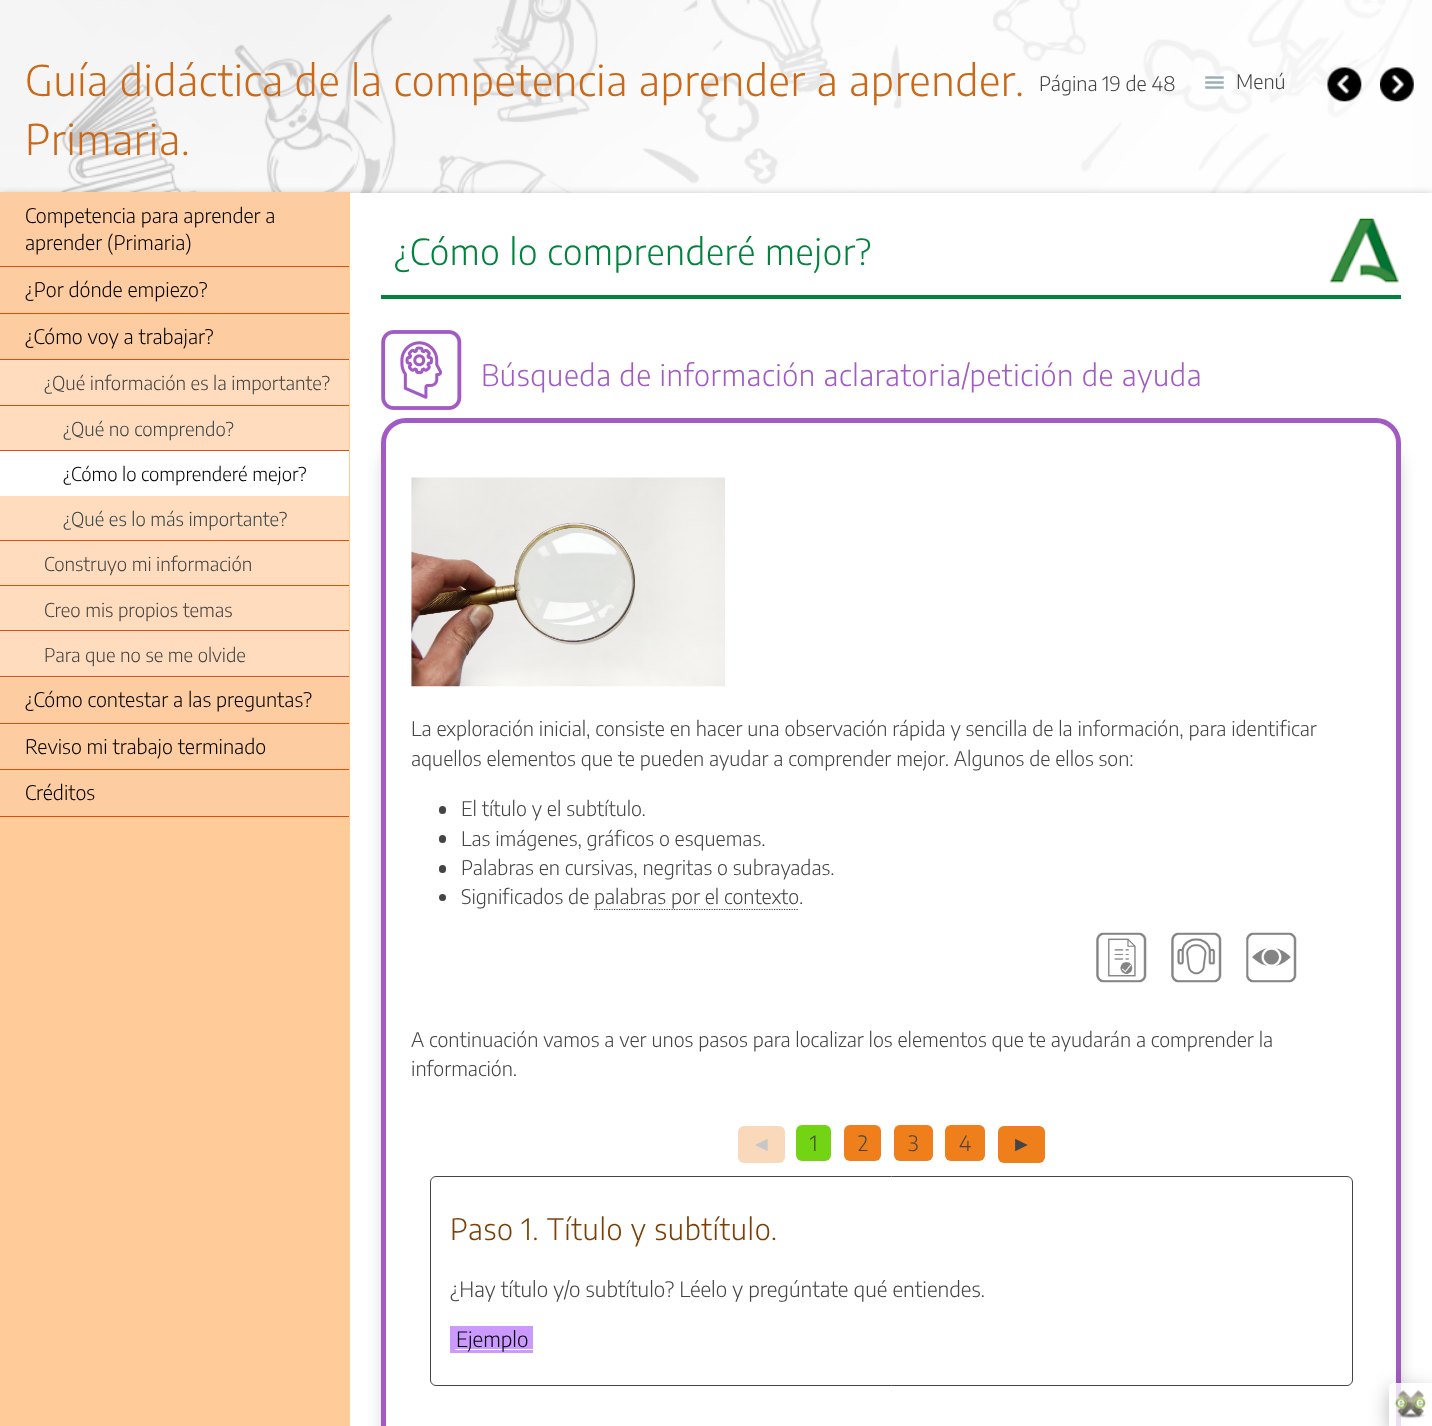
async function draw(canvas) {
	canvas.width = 1432;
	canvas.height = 1426;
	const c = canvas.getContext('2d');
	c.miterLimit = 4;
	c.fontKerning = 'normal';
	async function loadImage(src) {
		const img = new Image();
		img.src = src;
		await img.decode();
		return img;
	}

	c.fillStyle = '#fdfdfd';
	c.fillRect(0, 0, 1432, 1426);
	c.drawImage(await loadImage('img1.png'), 0, 0, 1413, 193);
	c.letterSpacing = '0.62px';
	c.font = '300 42px Encode Sans';
	c.fillStyle = '#cc6715';
	c.fillText('Guía didáctica de la competencia aprender a aprender.', 25, 96);
	c.fillText('Primaria.', 25, 155);
	c.letterSpacing = '0px';
	c.font = '300 20px Encode Sans';
	c.fillStyle = '#444';
	c.fillText('Página 19 de 48', 1039, 91);
	c.drawImage(await loadImage('img2.png'), 1327, 67, 35, 35);
	c.drawImage(await loadImage('img3.png'), 1380, 67, 34, 35);
	c.drawImage(await loadImage('img4.png'), 1204, 76, 20, 13);
	c.fillText('Menú', 1236, 89);
	c.fillStyle = '#00000066';
	c.filter = 'blur(5px)';
	c.beginPath();
	c.rect(0, 196, 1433, 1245);
	c.fill();
	c.filter = 'none';
	for (const [x, y, w, h, color] of [
		[0, 192, 350, 1234, '#fc9'],
		[0, 193, 349, 120, '#fdcca0'],
		[0, 266, 349, 1, '#d6510d'],
	]) {
		c.fillStyle = color;
		c.fillRect(x, y, w, h);
	}
	c.fillStyle = '#000';
	c.fillText('Competencia para aprender a', 25, 223);
	c.fillText('aprender (Primaria)', 25, 250);
	c.fillStyle = '#d6510d';
	c.fillRect(0, 313, 349, 1);
	c.fillStyle = '#000';
	c.fillText('¿Por dónde empiezo?', 25, 297);
	c.fillStyle = '#fdcca0';
	c.fillRect(0, 314, 349, 45);
	c.fillStyle = '#d6510d';
	c.fillRect(0, 359, 349, 1);
	c.fillStyle = '#000';
	c.fillText('¿Cómo voy a trabajar?', 25, 344);
	c.fillStyle = '#fedcbd';
	c.fillRect(0, 360, 349, 45);
	c.fillStyle = '#d6510d';
	c.fillRect(0, 405, 349, 1);
	c.font = '300 18.9px Encode Sans';
	c.fillStyle = '#444';
	c.fillText('¿Qué información es la importante?', 44, 390);
	c.fillStyle = '#fedcbd';
	c.fillRect(0, 406, 349, 44);
	c.fillStyle = '#d6510d';
	c.fillRect(0, 450, 349, 1);
	c.fillStyle = '#3a4749';
	c.fillText('¿Qué no comprendo?', 63, 436);
	c.fillStyle = '#fff';
	c.fillRect(0, 451, 349, 45);
	c.fillStyle = '#000';
	c.fillText('¿Cómo lo comprenderé mejor?', 63, 481);
	c.fillStyle = '#fedcbd';
	c.fillRect(0, 496, 349, 44);
	c.fillStyle = '#d6510d';
	c.fillRect(0, 540, 349, 1);
	c.fillStyle = '#3a4749';
	c.fillText('¿Qué es lo más importante?', 63, 526);
	c.fillStyle = '#fedcbd';
	c.fillRect(0, 541, 349, 44);
	c.fillStyle = '#d6510d';
	c.fillRect(0, 585, 349, 1);
	c.fillStyle = '#444';
	c.fillText('Construyo mi información', 44, 571);
	c.fillStyle = '#fedcbd';
	c.fillRect(0, 586, 349, 44);
	c.fillStyle = '#d6510d';
	c.fillRect(0, 630, 349, 1);
	c.fillStyle = '#444';
	c.fillText('Creo mis propios temas', 44, 617);
	c.fillStyle = '#fedcbd';
	c.fillRect(0, 631, 349, 47);
	c.fillStyle = '#d6510d';
	c.fillRect(0, 676, 349, 1);
	c.fillStyle = '#444';
	c.fillText('Para que no se me olvide', 44, 662);
	c.fillStyle = '#fdcca0';
	c.fillRect(0, 678, 349, 45);
	c.fillStyle = '#d6510d';
	c.fillRect(0, 723, 349, 1);
	c.font = '300 20px Encode Sans';
	c.fillStyle = '#000';
	c.fillText('¿Cómo contestar a las preguntas?', 25, 707);
	c.fillStyle = '#fdcca0';
	c.fillRect(0, 724, 349, 45);
	c.fillStyle = '#d6510d';
	c.fillRect(0, 769, 349, 1);
	c.fillStyle = '#000';
	c.fillText('Reviso mi trabajo terminado', 25, 754);
	c.fillStyle = '#fdcca0';
	c.fillRect(0, 770, 349, 48);
	c.fillStyle = '#d6510d';
	c.fillRect(0, 816, 349, 1);
	c.fillStyle = '#000';
	c.fillText('Créditos', 25, 800);
	c.fillStyle = '#fff';
	c.fillRect(350, 193, 1082, 1233);
	c.drawImage(await loadImage('img5.png'), 1329, 218, 71, 65);
	c.fillStyle = '#00843d';
	c.fillRect(381, 295, 1020, 4);
	c.letterSpacing = '0.62px';
	c.font = '300 35.75px Encode Sans';
	c.fillText('¿Cómo lo comprenderé mejor?', 394, 265);
	c.drawImage(await loadImage('img6.png'), 381, 330, 81, 80);
	c.font = '300 29.4px Encode Sans';
	c.fillStyle = '#a25ac4';
	c.fillText('Búsqueda de información aclaratoria/petición de ayuda', 481, 386);
	c.fillStyle = '#0000005e';
	c.filter = 'blur(10px)';
	c.beginPath();
	c.roundRect(389, 448, 1005, 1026, 18);
	c.fill();
	c.filter = 'none';
	c.fillStyle = '#fff';
	c.beginPath();
	c.roundRect(383.5, 420.5, 1015, 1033, 22.5);
	c.fill();
	c.strokeStyle = '#a25ac4';
	c.lineWidth = 5;
	c.stroke();
	c.drawImage(await loadImage('img7.png'), 411, 477, 314, 210);
	c.letterSpacing = '0px';
	c.font = '300 20px Encode Sans';
	c.fillStyle = '#444';
	c.fillText('La exploración inicial, consiste en hacer una observación rápida y sencilla de la información, para identificar', 411, 736);
	c.fillText('aquellos elementos que te pueden ayudar a comprender mejor. Algunos de ellos son:', 411, 766);
	c.beginPath();
	c.roundRect(439, 806, 7, 8, 3.5);
	c.fill();
	c.fillText('El título y el subtítulo.', 461, 816);
	c.beginPath();
	c.roundRect(439, 835, 7, 8, 3.5);
	c.fill();
	c.fillText('Las imágenes, gráficos o esquemas.', 461, 846);
	c.beginPath();
	c.roundRect(439, 865, 7, 8, 3.5);
	c.fill();
	c.fillText('Palabras en cursivas, negritas o subrayadas.', 461, 875);
	c.beginPath();
	c.arc(442.5, 897.5, 3.5, 0, 2 * Math.PI);
	c.fill();
	c.fillText('Significados de', 461, 904);
	c.beginPath();
	c.moveTo(594, 909.5);
	c.lineTo(799, 909.5);
	c.strokeStyle = '#444';
	c.lineWidth = 1.2;
	c.setLineDash([1.25, 1.25]);
	c.stroke();
	c.fillText('palabras por el contexto', 594, 904);
	c.fillText('.', 799, 904);
	c.drawImage(await loadImage('img8.png'), 1096, 932, 51, 51);
	c.drawImage(await loadImage('img9.png'), 1171, 932, 51, 51);
	c.drawImage(await loadImage('img10.png'), 1246, 932, 51, 51);
	c.fillText('A continuación vamos a ver unos pasos para localizar los elementos que te ayudarán a comprender la', 411, 1047);
	c.fillText('información.', 411, 1076);
	c.fillStyle = '#fad9ba';
	c.beginPath();
	c.roundRect(738, 1126, 47, 37, 6);
	c.fill();
	c.font = '21px Liberation Sans';
	c.fillStyle = '#c7c7c7';
	c.fillText('◄', 751, 1151);
	c.fillStyle = '#73d413';
	c.beginPath();
	c.roundRect(796, 1125, 35, 36, 6);
	c.fill();
	c.font = '300 21px Encode Sans';
	c.fillStyle = '#444';
	c.fillText('1', 810, 1151);
	c.fillStyle = '#ee7f1a';
	c.beginPath();
	c.roundRect(844, 1125, 37, 36, 6);
	c.fill();
	c.fillStyle = '#444';
	c.fillText('2', 858, 1151);
	c.fillStyle = '#ee7f1a';
	c.beginPath();
	c.roundRect(894, 1125, 39, 36, 6);
	c.fill();
	c.fillStyle = '#444';
	c.fillText('3', 908, 1151);
	c.fillStyle = '#ee7f1a';
	c.beginPath();
	c.roundRect(945, 1125, 40, 36, 6);
	c.fill();
	c.fillStyle = '#444';
	c.fillText('4', 959, 1151);
	c.fillStyle = '#ee7f1a';
	c.beginPath();
	c.roundRect(998, 1126, 47, 37, 6);
	c.fill();
	c.font = '21px Liberation Sans';
	c.fillStyle = '#444';
	c.fillText('►', 1011, 1151);
	c.beginPath();
	c.roundRect(430.5, 1176.5, 922, 209, 5.5);
	c.lineWidth = 1;
	c.setLineDash([]);
	c.stroke();
	c.letterSpacing = '0.62px';
	c.font = '300 29.4px Encode Sans';
	c.fillStyle = '#7c3f06';
	c.fillText('Paso 1. Título y subtítulo.', 450, 1240);
	c.letterSpacing = '0px';
	c.font = '300 21px Encode Sans';
	c.fillStyle = '#444';
	c.fillText('¿Hay título y/o subtítulo? Léelo y pregúntate qué entiendes.', 450, 1297);
	c.fillStyle = '#c9f';
	c.fillRect(450, 1326, 83, 27);
	c.fillStyle = '#fff';
	c.fillRect(455, 1349, 78, 1);
	c.fillStyle = '#000';
	c.fillText('Ejemplo', 456, 1347);
	c.save();
	c.beginPath();
	c.moveTo(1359, 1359);
	c.lineTo(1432, 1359);
	c.lineTo(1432, 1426);
	c.lineTo(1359, 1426);
	c.closePath();
	c.moveTo(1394, 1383);
	c.lineTo(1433, 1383);
	c.lineTo(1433, 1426);
	c.lineTo(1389, 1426);
	c.lineTo(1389, 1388);
	c.bezierCurveTo(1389, 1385, 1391, 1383, 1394, 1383);
	c.closePath();
	c.clip('evenodd');
	c.fillStyle = '#00000047';
	c.filter = 'blur(9.5px)';
	c.beginPath();
	c.roundRect(1389, 1389, 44, 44, 5);
	c.fill();
	c.filter = 'none';
	c.restore();
	c.fillStyle = '#ffffffcc';
	c.beginPath();
	c.moveTo(1394, 1383);
	c.lineTo(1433, 1383);
	c.lineTo(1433, 1426);
	c.lineTo(1389, 1426);
	c.lineTo(1389, 1388);
	c.bezierCurveTo(1389, 1385, 1391, 1383, 1394, 1383);
	c.closePath();
	c.fill();
	c.drawImage(await loadImage('img11.png'), 1395, 1389, 31, 30);
}

draw(document.querySelector('canvas'));
